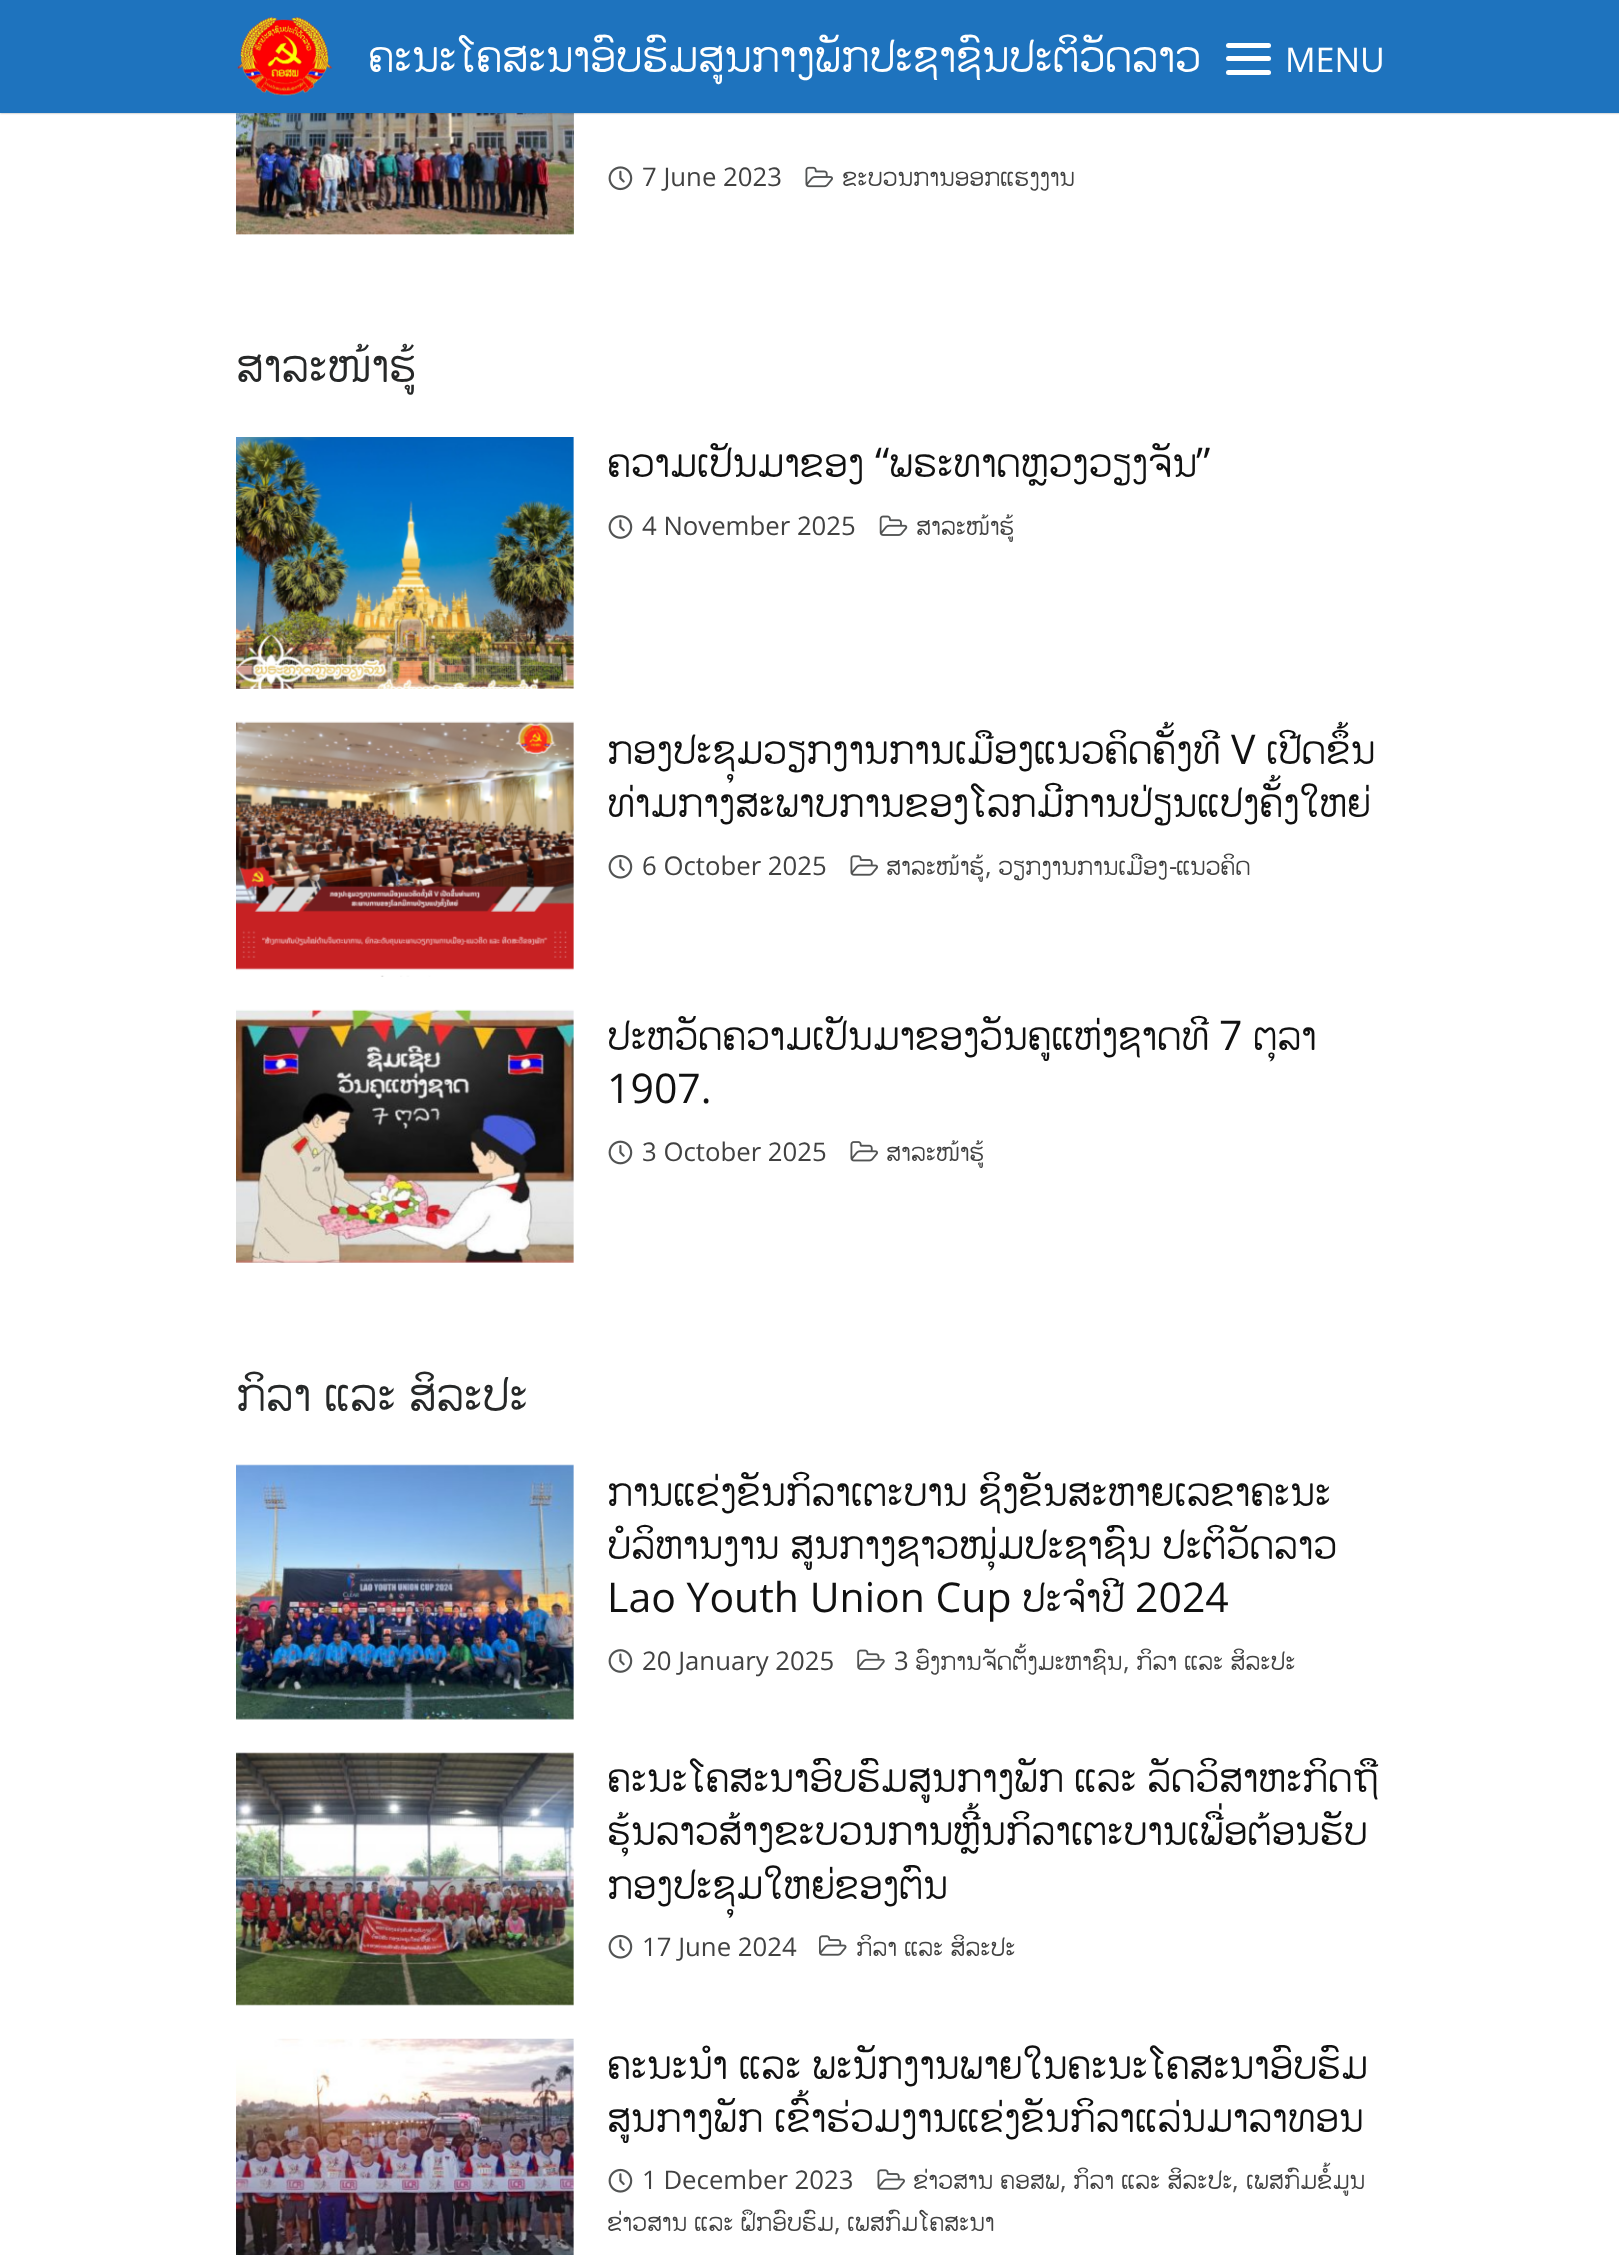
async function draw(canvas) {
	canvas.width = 1619;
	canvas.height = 2255;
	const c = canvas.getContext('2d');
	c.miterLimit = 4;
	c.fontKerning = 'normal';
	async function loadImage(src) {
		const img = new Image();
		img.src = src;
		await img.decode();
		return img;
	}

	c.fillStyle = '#fff';
	c.fillRect(0, 0, 1619, 2255);
	c.drawImage(await loadImage('img2.png'), 236, 113, 338, 122);
	c.fillStyle = '#00000066';
	c.filter = 'blur(1px)';
	c.beginPath();
	c.rect(0, 0, 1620, 113);
	c.fill();
	c.filter = 'none';
	c.fillStyle = '#1e73be';
	c.fillRect(0, 0, 1619, 113);
	c.drawImage(await loadImage('img1.png'), 237, 16, 96, 80);
	c.font = '45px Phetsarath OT';
	c.fillStyle = '#fff';
	c.fillText('ຄະນະໂຄສະນາອົບຮົມສູນກາງພັກປະຊາຊົນປະຕິວັດລາວ', 368, 72);
	c.beginPath();
	c.roundRect(1226, 43, 45, 5, 2.5);
	c.fill();
	c.beginPath();
	c.roundRect(1226, 56, 45, 5, 2.5);
	c.fill();
	c.beginPath();
	c.roundRect(1226, 70, 45, 5, 2.5);
	c.fill();
	c.font = '34px Open Sans';
	c.fillText('MENU', 1285, 72);
	c.drawImage(await loadImage('img3.png'), 608, 166, 25, 25);
	c.font = '25.75px Open Sans';
	c.fillStyle = '#414141';
	c.fillText('7 June 2023', 642, 186);
	c.drawImage(await loadImage('img4.png'), 805, 166, 28, 22);
	c.font = '25.75px Phetsarath OT';
	c.fillText('ຂະບວນການອອກແຮງງານ', 842, 186);
	c.font = '47.25px Phetsarath OT';
	c.fillStyle = '#262828';
	c.fillText('ສາລະໜ້າຮູ້', 236, 382);
	c.drawImage(await loadImage('img5.png'), 236, 437, 338, 252);
	c.font = '41px Phetsarath OT';
	c.fillStyle = '#111';
	c.fillText('ຄວາມເປັນມາຂອງ', 607, 477);
	c.font = '41px Open Sans';
	c.fillText('“', 875, 477);
	c.font = '41px Phetsarath OT';
	c.fillText('ພຣະທາດຫຼວງວຽງຈັນ', 889, 477);
	c.font = '41px Open Sans';
	c.fillText('”', 1196, 477);
	c.drawImage(await loadImage('img6.png'), 608, 515, 25, 24);
	c.font = '25.75px Open Sans';
	c.fillStyle = '#414141';
	c.fillText('4 November 2025', 642, 535);
	c.drawImage(await loadImage('img7.png'), 879, 515, 29, 21);
	c.font = '25.75px Phetsarath OT';
	c.fillText('ສາລະໜ້າຮູ້', 916, 535);
	c.drawImage(await loadImage('img8.png'), 236, 721, 338, 256);
	c.font = '41px Phetsarath OT';
	c.fillStyle = '#111';
	c.fillText('ກອງປະຊຸມວຽກງານການເມືອງແນວຄິດຄັ້ງທີ', 607, 764);
	c.font = '41px Open Sans';
	c.fillText('V', 1231, 764);
	c.font = '41px Phetsarath OT';
	c.fillText('ເປີດຂຶ້ນ', 1266, 764);
	c.fillText('ທ່າມກາງສະພາບການຂອງໂລກມີການປ່ຽນແປງຄັ້ງໃຫຍ່', 607, 817);
	c.drawImage(await loadImage('img9.png'), 608, 854, 25, 25);
	c.font = '25.75px Open Sans';
	c.fillStyle = '#414141';
	c.fillText('6 October 2025', 642, 875);
	c.drawImage(await loadImage('img10.png'), 850, 855, 28, 21);
	c.font = '25.75px Phetsarath OT';
	c.fillText('ສາລະໜ້າຮູ້', 886, 875);
	c.fillText('ວຽກງານການເມືອງ ແນວຄິດ', 998, 875);
	c.font = '25.75px Open Sans';
	c.fillText('-', 1169, 875);
	c.fillStyle = '#515353';
	c.fillText(',', 985, 875);
	c.drawImage(await loadImage('img11.png'), 236, 1009, 338, 254);
	c.font = '41px Phetsarath OT';
	c.fillStyle = '#111';
	c.fillText('ປະຫວັດຄວາມເປັນມາຂອງວັນຄູແຫ່ງຊາດທີ', 607, 1050);
	c.font = '41px Open Sans';
	c.fillText('7', 1219, 1050);
	c.font = '41px Phetsarath OT';
	c.fillText('ຕຸລາ', 1253, 1050);
	c.font = '41px Open Sans';
	c.fillText('1907.', 607, 1103);
	c.drawImage(await loadImage('img12.png'), 608, 1140, 25, 25);
	c.font = '25.75px Open Sans';
	c.fillStyle = '#414141';
	c.fillText('3 October 2025', 642, 1161);
	c.drawImage(await loadImage('img13.png'), 850, 1141, 28, 21);
	c.font = '25.75px Phetsarath OT';
	c.fillText('ສາລະໜ້າຮູ້', 886, 1161);
	c.wordSpacing = '-2px';
	c.font = '47.25px Phetsarath OT';
	c.fillStyle = '#262828';
	c.fillText('ກິລາ ແລະ ສິລະປະ', 236, 1411);
	c.drawImage(await loadImage('img14.png'), 236, 1464, 338, 256);
	c.font = '41px Phetsarath OT';
	c.fillStyle = '#111';
	c.fillText('ການແຂ່ງຂັນກິລາເຕະບານ ຊິງຂັນສະຫາຍເລຂາຄະນະ', 607, 1506);
	c.fillText('ບໍລິຫານງານ ສູນກາງຊາວໜຸ່ມປະຊາຊົນ ປະຕິວັດລາວ', 607, 1559);
	c.wordSpacing = '0px';
	c.font = '41px Open Sans';
	c.fillText('Lao Youth Union Cup', 607, 1612);
	c.font = '41px Phetsarath OT';
	c.fillText('ປະຈຳປີ', 1022, 1612);
	c.font = '41px Open Sans';
	c.fillText('2024', 1135, 1612);
	c.drawImage(await loadImage('img6.png'), 608, 1649, 25, 24);
	c.font = '25.75px Open Sans';
	c.fillStyle = '#414141';
	c.fillText('20 January 2025', 642, 1670);
	c.drawImage(await loadImage('img15.png'), 857, 1649, 28, 21);
	c.fillText('3', 894, 1670);
	c.font = '25.75px Phetsarath OT';
	c.fillText('ອົງການຈັດຕັ້ງມະຫາຊົນ', 915, 1670);
	c.font = '25.75px Open Sans';
	c.fillStyle = '#515353';
	c.fillText(',', 1123, 1670);
	c.wordSpacing = '-1px';
	c.font = '25.75px Phetsarath OT';
	c.fillStyle = '#414141';
	c.fillText('ກິລາ ແລະ ສິລະປະ', 1136, 1670);
	c.drawImage(await loadImage('img16.png'), 236, 1752, 338, 254);
	c.wordSpacing = '0px';
	c.font = '41px Phetsarath OT';
	c.fillStyle = '#111';
	for (const [text, x, y] of [
		['ຄະນະໂຄສະນາອົບຮົມສູນກາງພັກ', 607, 1792],
		['ແລະ', 1074, 1792],
		['ລັດວິສາຫະກິດຖື', 1147, 1792],
		['ຮຸ້ນລາວສ້າງຂະບວນການຫຼີ້ນກິລາເຕະບານເພື່ອຕ້ອນຮັບ', 607, 1845],
		['ກອງປະຊຸມໃຫຍ່ຂອງຕົນ', 607, 1899],
	]) {
		c.fillText(text, x, y);
	}
	c.drawImage(await loadImage('img9.png'), 608, 1934, 25, 25);
	c.font = '25.75px Open Sans';
	c.fillStyle = '#414141';
	c.fillText('17 June 2024', 642, 1956);
	c.drawImage(await loadImage('img17.png'), 819, 1935, 28, 21);
	c.wordSpacing = '-1px';
	c.font = '25.75px Phetsarath OT';
	c.fillText('ກິລາ ແລະ ສິລະປະ', 856, 1956);
	c.drawImage(await loadImage('img18.png'), 236, 2038, 338, 217);
	c.wordSpacing = '-2px';
	c.font = '41px Phetsarath OT';
	c.fillStyle = '#111';
	c.fillText('ຄະນະນຳ ແລະ ພະນັກງານພາຍໃນຄະນະໂຄສະນາອົບຮົມ', 607, 2079);
	c.fillText('ສູນກາງພັກ ເຂົ້າຮ່ວມງານແຂ່ງຂັນກິລາແລ່ນມາລາທອນ', 607, 2132);
	c.drawImage(await loadImage('img9.png'), 608, 2168, 25, 25);
	c.wordSpacing = '0px';
	c.font = '25.75px Open Sans';
	c.fillStyle = '#414141';
	c.fillText('1 December 2023', 642, 2189);
	c.drawImage(await loadImage('img10.png'), 877, 2169, 28, 21);
	c.wordSpacing = '-1px';
	c.font = '25.75px Phetsarath OT';
	c.fillText('ຂ່າວສານ ຄອສພ', 913, 2189);
	c.wordSpacing = '0px';
	c.font = '25.75px Open Sans';
	c.fillStyle = '#515353';
	c.fillText(',', 1060, 2189);
	c.wordSpacing = '-1px';
	c.font = '25.75px Phetsarath OT';
	c.fillStyle = '#414141';
	c.fillText('ກິລາ ແລະ ສິລະປະ', 1073, 2189);
	c.wordSpacing = '0px';
	c.fillText('ເພສກົມຂໍ້ມູນ', 1246, 2189);
	c.font = '25.75px Open Sans';
	c.fillStyle = '#515353';
	c.fillText(',', 1232, 2189);
	c.wordSpacing = '-1px';
	c.font = '25.75px Phetsarath OT';
	c.fillStyle = '#414141';
	c.fillText('ຂ່າວສານ ແລະ ຝຶກອົບຮົມ', 607, 2231);
	c.wordSpacing = '0px';
	c.font = '25.75px Open Sans';
	c.fillStyle = '#515353';
	c.fillText(',', 834, 2231);
	c.font = '25.75px Phetsarath OT';
	c.fillStyle = '#414141';
	c.fillText('ເພສກົມໂຄສະນາ', 847, 2231);
}

draw(document.querySelector('canvas'));
